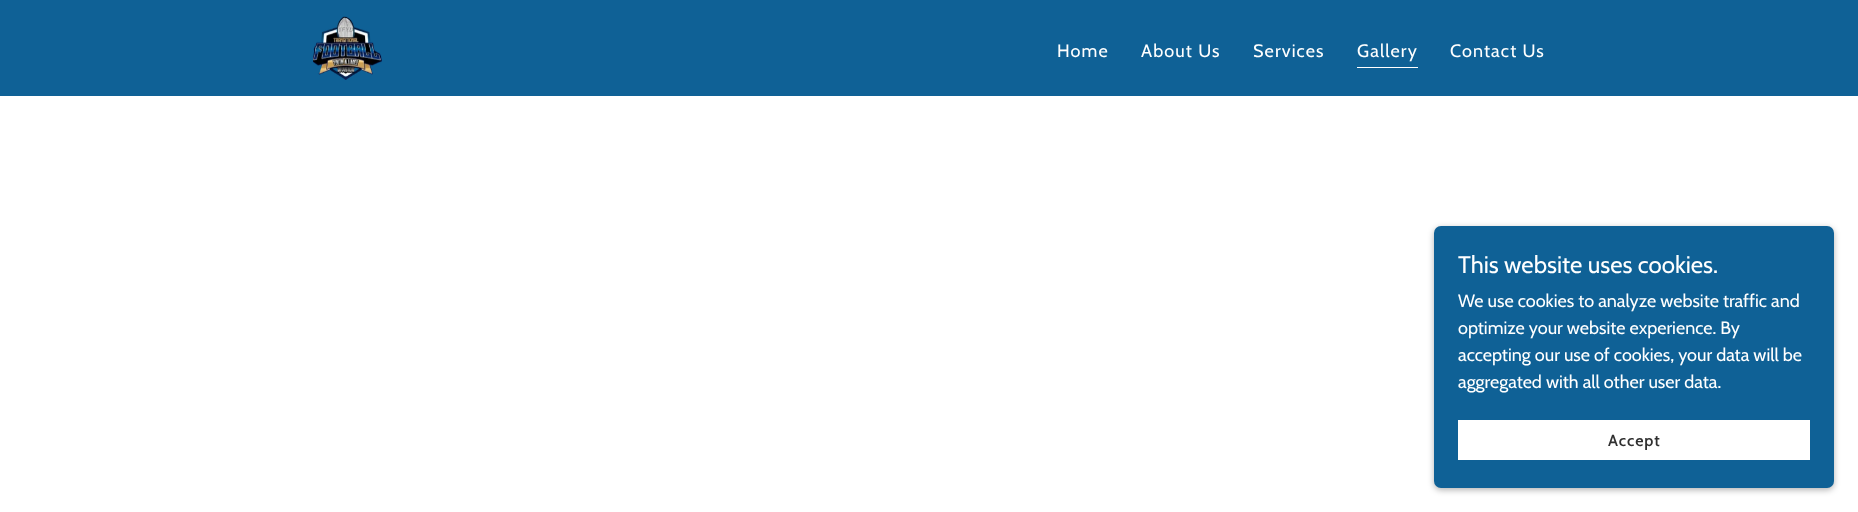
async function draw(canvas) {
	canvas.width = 1858;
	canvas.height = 512;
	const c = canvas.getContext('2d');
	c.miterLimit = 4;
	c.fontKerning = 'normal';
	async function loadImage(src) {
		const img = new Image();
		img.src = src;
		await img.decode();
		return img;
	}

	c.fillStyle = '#fff';
	c.fillRect(0, 0, 1858, 512);
	c.fillStyle = '#0f6196';
	c.fillRect(0, 0, 1858, 96);
	c.drawImage(await loadImage('img1.png'), 313, 16, 69, 64);
	c.letterSpacing = '1.1px';
	c.font = '18px Cabin';
	c.fillStyle = '#fff';
	for (const [text, x, y] of [
		['Home', 1057, 57],
		['About Us', 1141, 57],
		['Services', 1253, 57],
	]) {
		c.fillText(text, x, y);
	}
	c.fillRect(1357, 67, 61, 1);
	c.fillText('Gallery', 1357, 57);
	c.fillText('Contact Us', 1450, 57);
	c.fillStyle = '#0000004d';
	c.filter = 'blur(3px)';
	c.beginPath();
	c.roundRect(1434, 228, 400, 262, 7);
	c.fill();
	c.filter = 'none';
	c.fillStyle = '#0f6196';
	c.beginPath();
	c.roundRect(1434, 226, 400, 262, 7);
	c.fill();
	c.letterSpacing = '0px';
	c.font = '24px Cabin';
	c.fillStyle = '#fff';
	c.fillText('This website uses cookies.', 1458, 273);
	c.font = '18px Cabin';
	for (const [text, x, y] of [
		['We use cookies to analyze website traffic and', 1458, 307],
		['optimize your website experience. By', 1458, 334],
		['accepting our use of cookies, your data will be', 1458, 361],
		['aggregated with all other user data.', 1458, 388],
	]) {
		c.fillText(text, x, y);
	}
	c.fillRect(1458, 420, 352, 40);
	c.letterSpacing = '1px';
	c.font = '600 16px Cabin';
	c.fillStyle = '#303030';
	c.fillText('Accept', 1608, 446);
}

draw(document.querySelector('canvas'));
